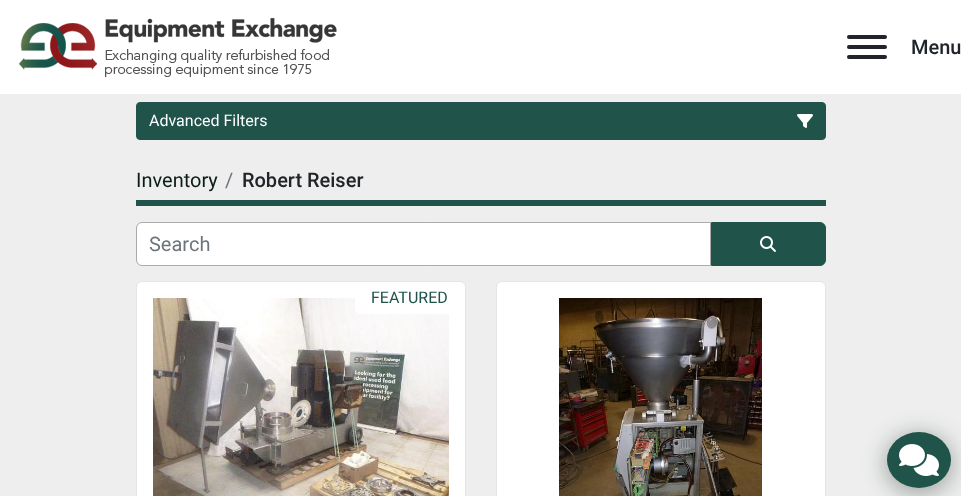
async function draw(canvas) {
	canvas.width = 961;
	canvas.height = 496;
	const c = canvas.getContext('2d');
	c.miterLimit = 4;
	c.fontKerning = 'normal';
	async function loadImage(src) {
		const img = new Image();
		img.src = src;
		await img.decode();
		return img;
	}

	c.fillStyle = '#eee';
	c.fillRect(0, 0, 961, 496);
	c.fillStyle = '#fff';
	c.fillRect(0, 0, 961, 94);
	c.drawImage(await loadImage('img1.png'), 19, 17, 318, 60);
	c.fillStyle = '#212529';
	c.beginPath();
	c.roundRect(847, 45, 40, 4, 2);
	c.fill();
	c.beginPath();
	c.roundRect(847, 35, 40, 4, 2);
	c.fill();
	c.beginPath();
	c.roundRect(847, 55, 40, 4, 2);
	c.fill();
	c.font = '500 20px Roboto';
	c.fillText('Menu', 911, 54);
	c.fillStyle = '#20544a';
	c.beginPath();
	c.roundRect(136.5, 102.5, 689, 37, 3.5);
	c.fill();
	c.strokeStyle = '#20544a';
	c.stroke();
	c.font = '16px Roboto';
	c.fillStyle = '#fff';
	c.fillText('Advanced Filters', 149, 126);
	c.drawImage(await loadImage('img2.png'), 797, 114, 16, 14);
	c.fillStyle = '#20544a';
	c.fillRect(136, 200, 690, 6);
	c.font = '20px Roboto';
	c.fillStyle = '#0b1d19';
	c.fillText('Inventory', 136, 187);
	c.fillStyle = '#6c757d';
	c.fillText('/', 225, 187);
	c.font = '500 20px Roboto';
	c.fillStyle = '#212529';
	c.fillText('Robert Reiser', 242, 187);
	c.fillStyle = '#fff';
	c.beginPath();
	c.roundRect(136.5, 222.5, 574, 43, [5.5, 0, 0, 5.5]);
	c.fill();
	c.strokeStyle = '#aaa';
	c.stroke();
	c.font = '20px Roboto';
	c.fillStyle = '#6c757d';
	c.fillText('Search', 149, 251);
	c.fillStyle = '#20544a';
	c.beginPath();
	c.roundRect(711.5, 222.5, 114, 43, [0, 5.5, 5.5, 0]);
	c.fill();
	c.strokeStyle = '#20544a';
	c.stroke();
	c.drawImage(await loadImage('img3.png'), 760, 236, 16, 16);
	c.fillStyle = '#fff';
	c.beginPath();
	c.roundRect(136.5, 281.5, 329, 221, 5.5);
	c.fill();
	c.strokeStyle = '#e5e5e5';
	c.stroke();
	c.drawImage(await loadImage('img4.png'), 153, 298, 296, 198);
	c.beginPath();
	c.roundRect(355, 282, 109, 32, 6);
	c.fill();
	c.font = '16px Roboto';
	c.fillStyle = '#20544a';
	c.fillText('FEATURED', 371, 303);
	c.fillStyle = '#a49a90';
	c.fillText('s', 317, 438);
	c.fillStyle = '#fff';
	c.beginPath();
	c.roundRect(496.5, 281.5, 329, 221, 5.5);
	c.fill();
	c.stroke();
	c.drawImage(await loadImage('img5.png'), 559, 298, 203, 198);
	c.fillStyle = '#535148';
	c.fillText('Details', 636, 438);
	c.fillStyle = '#0b1d1966';
	c.filter = 'blur(12px)';
	c.beginPath();
	c.roundRect(887, 436, 64, 56, 28);
	c.fill();
	c.filter = 'none';
	c.fillStyle = '#20544a';
	c.beginPath();
	c.ellipse(919, 460, 32, 28, 0, 0, 2 * Math.PI);
	c.fill();
	c.drawImage(await loadImage('img6.png'), 899, 444, 40, 32);
}

draw(document.querySelector('canvas'));
